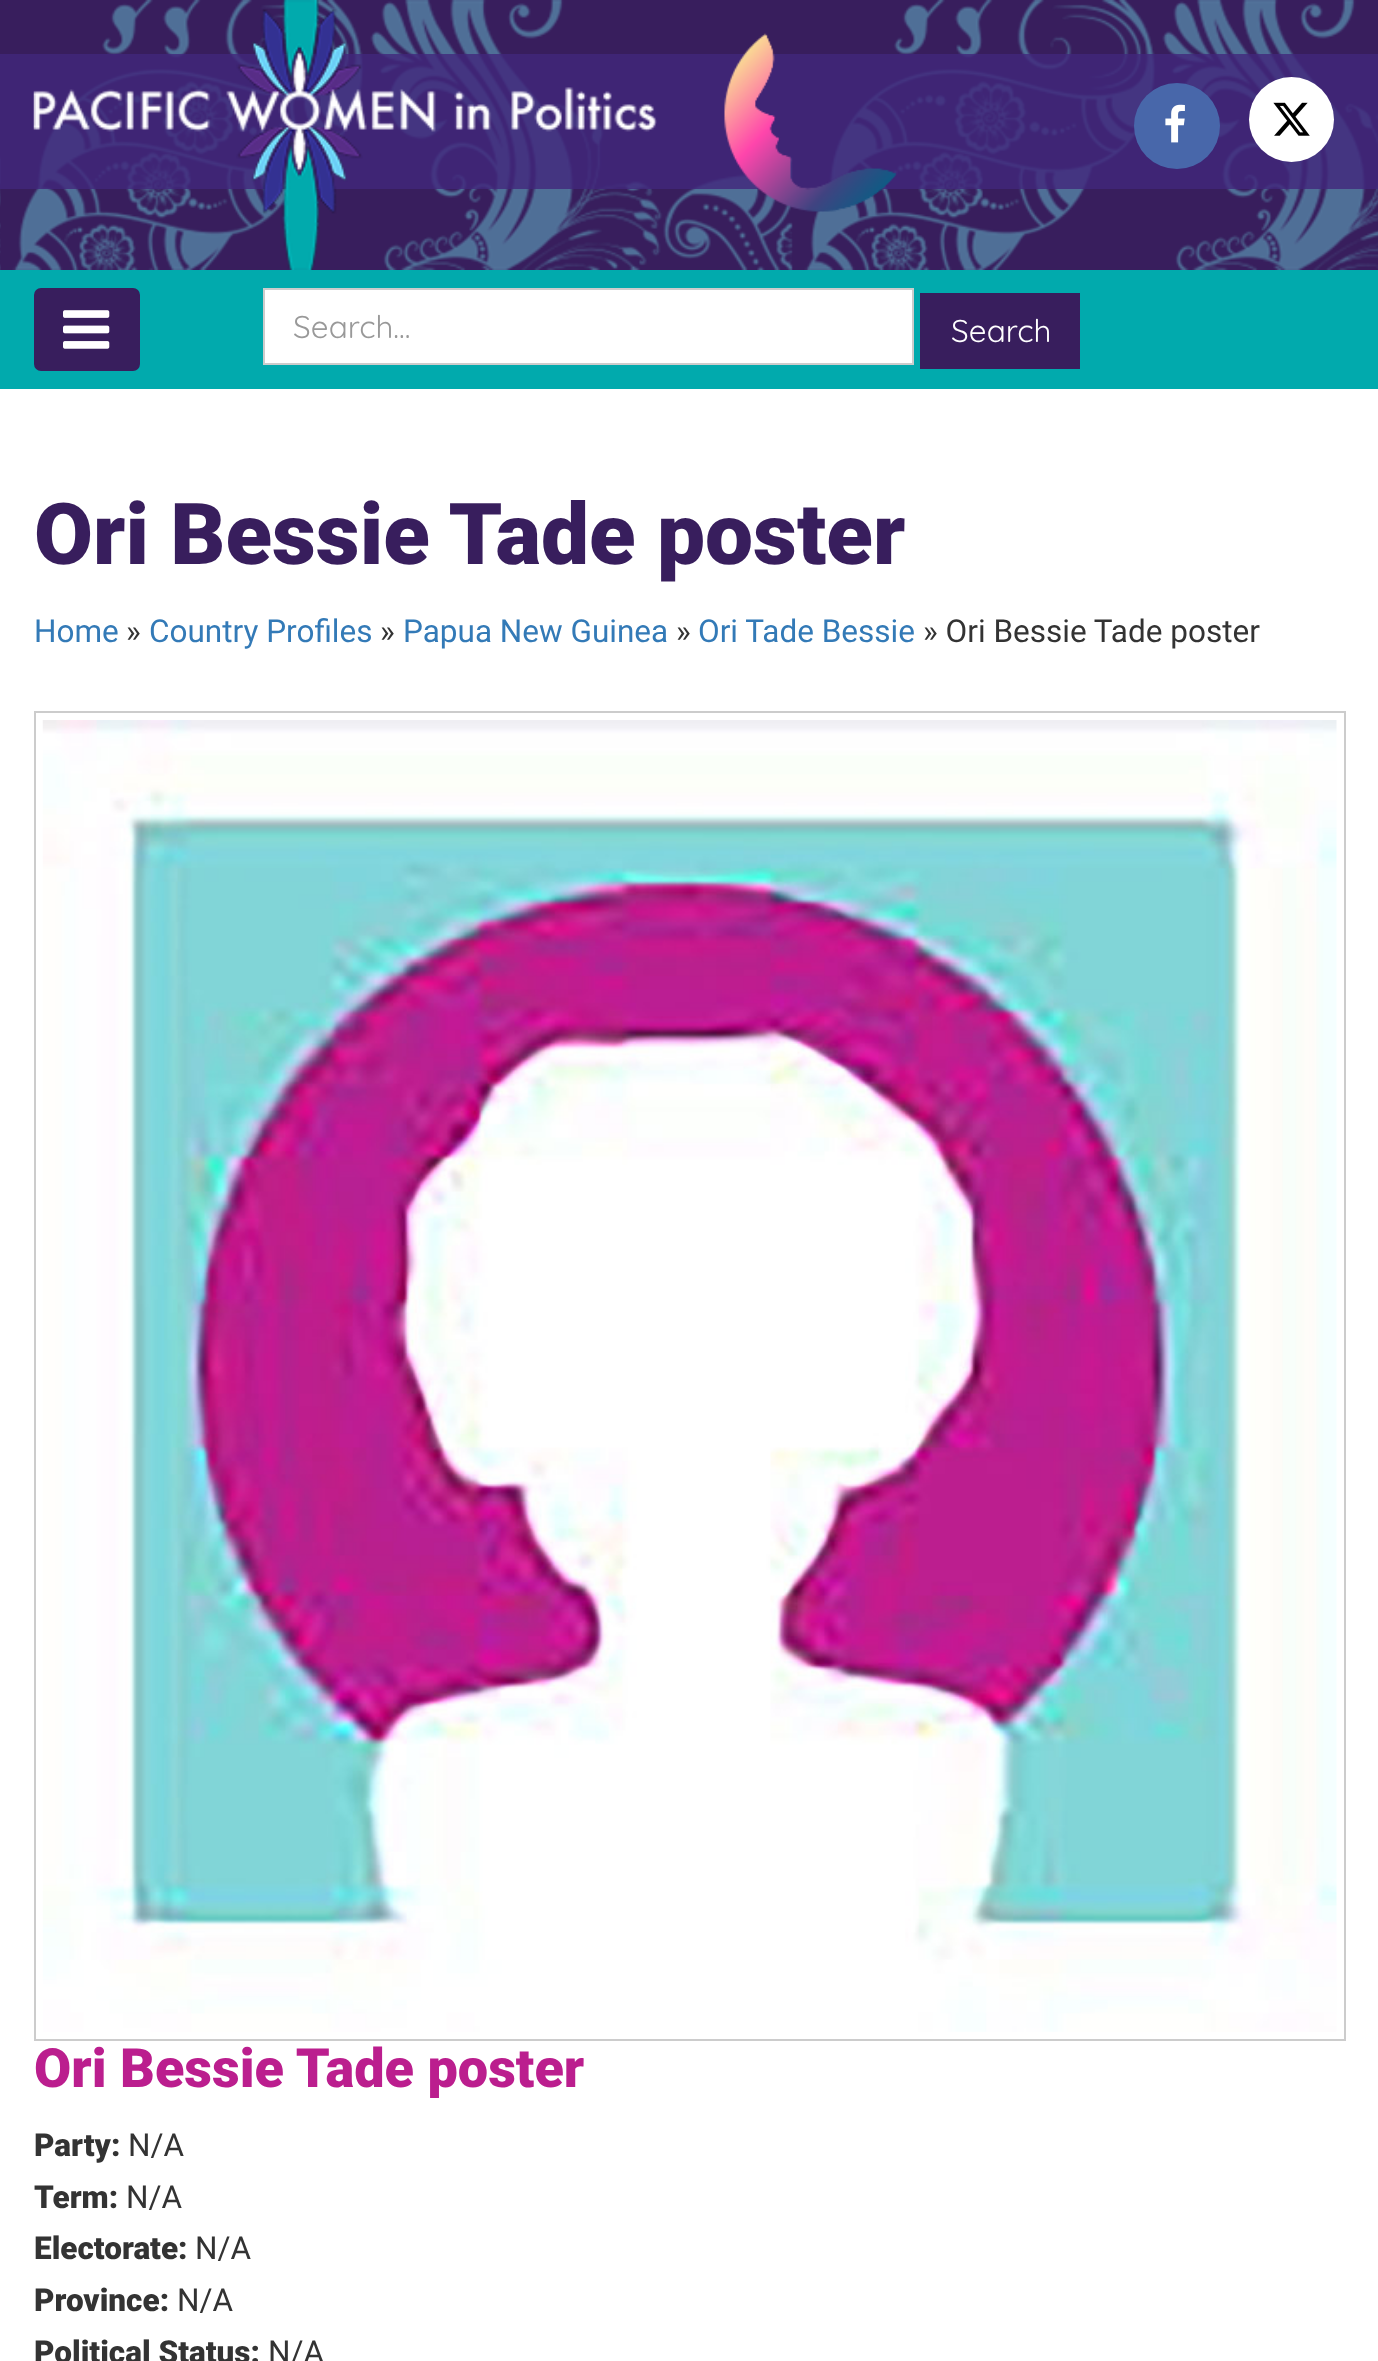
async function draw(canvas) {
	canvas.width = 1378;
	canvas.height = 2361;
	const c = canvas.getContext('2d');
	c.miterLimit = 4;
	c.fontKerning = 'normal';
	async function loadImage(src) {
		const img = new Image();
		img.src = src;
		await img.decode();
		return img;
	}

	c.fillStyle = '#381e5d';
	c.fillRect(0, 0, 1378, 2361);
	c.drawImage(await loadImage('img1.png'), 0, 0, 1378, 270);
	c.fillStyle = '#41277ccc';
	c.fillRect(0, 54, 1378, 135);
	c.drawImage(await loadImage('img2.png'), 33, 0, 624, 270);
	c.drawImage(await loadImage('img3.png'), 724, 33, 173, 179);
	c.fillStyle = '#4867aa';
	c.beginPath();
	c.arc(1177, 126, 43, 0, 2 * Math.PI);
	c.fill();
	c.drawImage(await loadImage('img4.png'), 1165, 104, 20, 39);
	c.fillStyle = '#fff';
	c.beginPath();
	c.arc(1291.5, 119.5, 42.5, 0, 2 * Math.PI);
	c.fill();
	c.drawImage(await loadImage('img5.png'), 1273, 102, 37, 34);
	c.fillStyle = '#01aaad';
	c.fillRect(0, 270, 1378, 119);
	c.fillStyle = '#381e5d';
	c.beginPath();
	c.roundRect(35, 289, 104, 81, 6);
	c.fill();
	c.strokeStyle = '#381e5d';
	c.lineWidth = 2;
	c.stroke();
	c.drawImage(await loadImage('img6.png'), 63, 310, 47, 39);
	c.fillStyle = '#fff';
	c.beginPath();
	c.rect(264, 289, 649, 75);
	c.fill();
	c.strokeStyle = '#ccc';
	c.stroke();
	c.font = '300 31.5px Quicksand';
	c.fillStyle = '#999';
	c.fillText('Search...', 293, 338);
	c.fillStyle = '#381e5d';
	c.fillRect(920, 293, 160, 76);
	c.fillStyle = '#fff';
	c.fillText('Search', 951, 342);
	c.fillRect(0, 389, 1378, 1972);
	c.font = '900 85.5px Roboto';
	c.fillStyle = '#381e5d';
	c.fillText('Ori Bessie Tade poster', 34, 564);
	c.font = '31.5px Roboto';
	c.fillStyle = '#337ab7';
	c.fillText('Home', 34, 642);
	c.fillStyle = '#333';
	c.fillText('»', 126, 642);
	c.fillStyle = '#337ab7';
	c.fillText('Country Profiles', 149, 642);
	c.fillStyle = '#333';
	c.fillText('»', 380, 642);
	c.fillStyle = '#337ab7';
	c.fillText('Papua New Guinea', 403, 642);
	c.fillStyle = '#333';
	c.fillText('»', 676, 642);
	c.fillStyle = '#337ab7';
	c.fillText('Ori Tade Bessie', 698, 642);
	c.fillStyle = '#333';
	c.fillText('» Ori Bessie Tade poster', 923, 642);
	c.strokeRect(35, 712, 1310, 1328);
	c.drawImage(await loadImage('img7.png'), 42, 720, 1295, 1312);
	c.font = '900 54px Roboto';
	c.fillStyle = '#bb1e8e';
	c.fillText('Ori Bessie Tade poster', 34, 2087);
	c.font = '900 31.5px Roboto';
	c.fillStyle = '#333';
	c.fillText('Party:', 34, 2156);
	c.font = '31.5px Roboto';
	c.fillText('N/A', 128, 2156);
	c.font = '900 31.5px Roboto';
	c.fillText('Term:', 34, 2208);
	c.font = '31.5px Roboto';
	c.fillText('N/A', 126, 2208);
	c.font = '900 31.5px Roboto';
	c.fillText('Electorate:', 34, 2259);
	c.font = '31.5px Roboto';
	c.fillText('N/A', 195, 2259);
	c.font = '900 31.5px Roboto';
	c.fillText('Province:', 34, 2311);
	c.font = '31.5px Roboto';
	c.fillText('N/A', 177, 2311);
	c.font = '900 31.5px Roboto';
	c.fillText('Political Status:', 34, 2363);
	c.font = '31.5px Roboto';
	c.fillText('N/A', 268, 2363);
}

draw(document.querySelector('canvas'));
